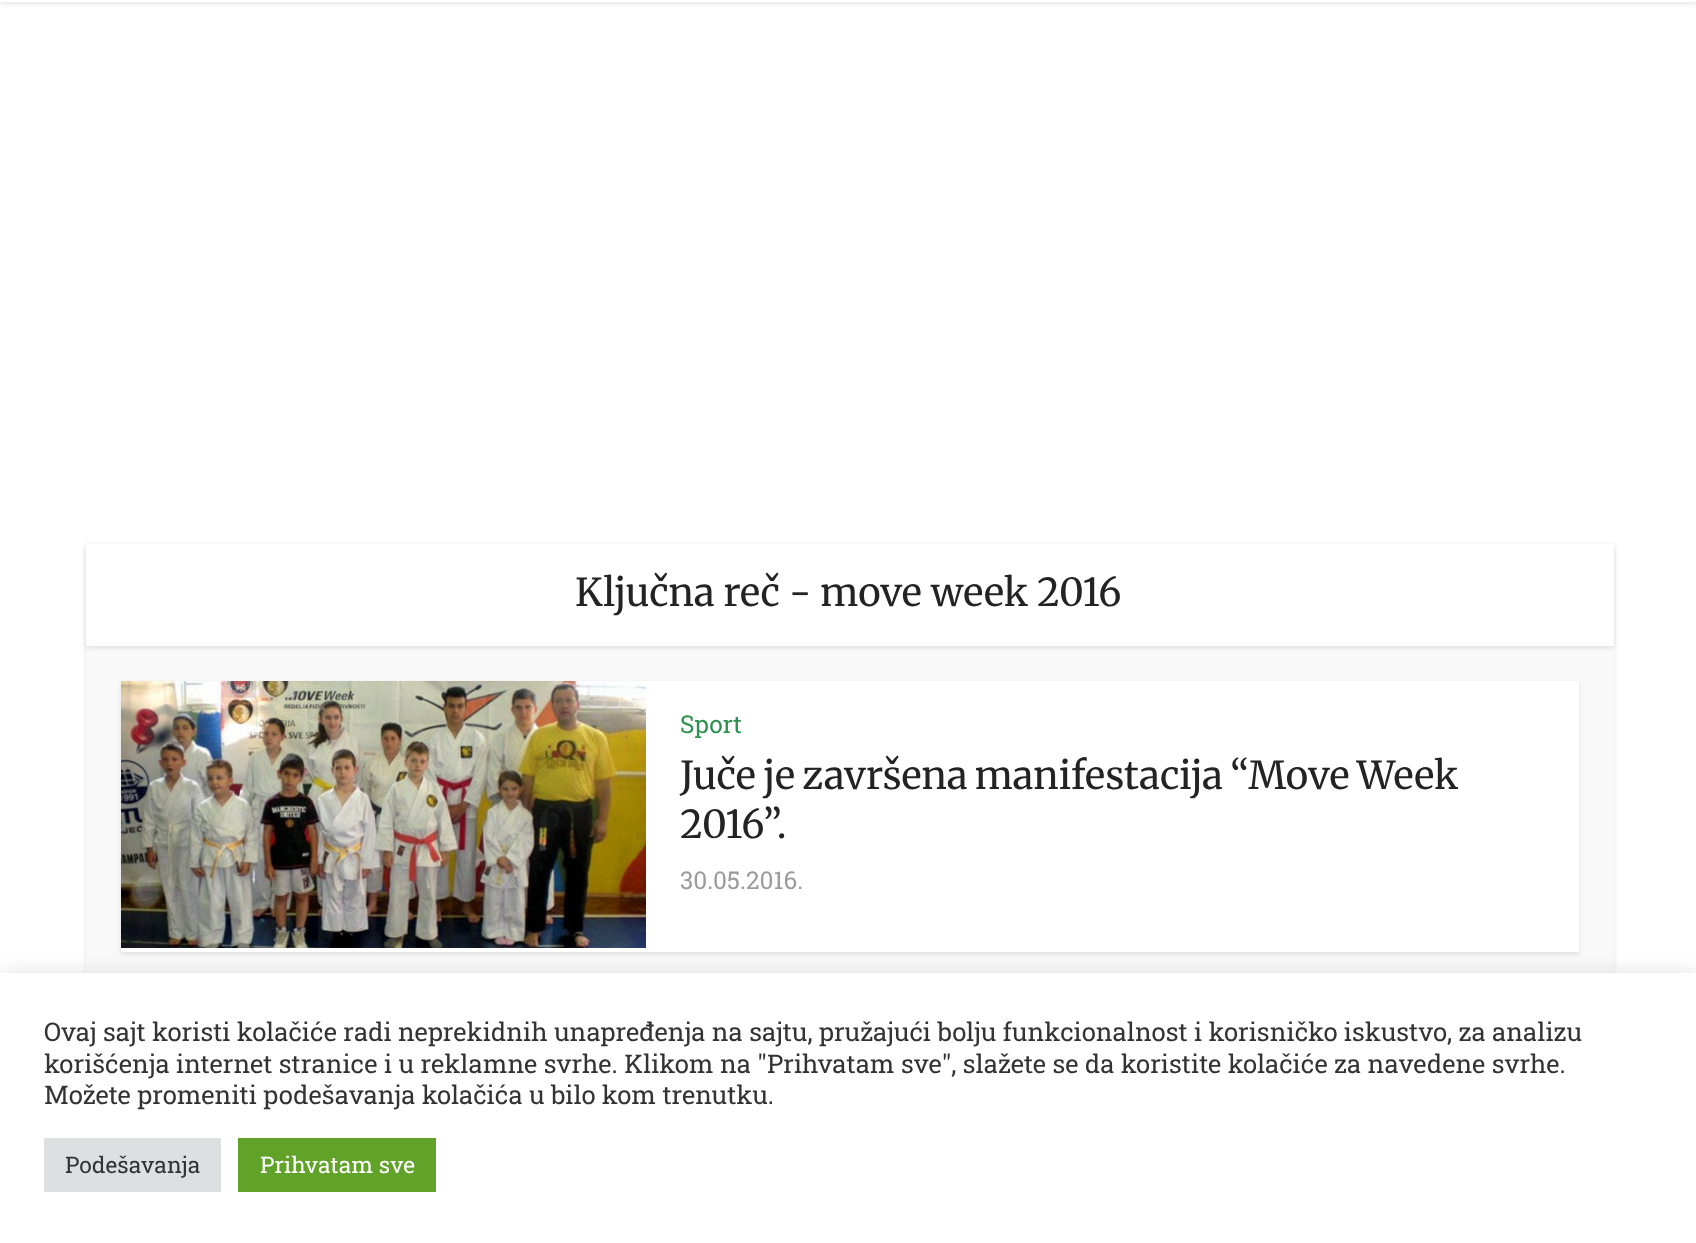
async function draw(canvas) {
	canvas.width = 1696;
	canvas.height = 1243;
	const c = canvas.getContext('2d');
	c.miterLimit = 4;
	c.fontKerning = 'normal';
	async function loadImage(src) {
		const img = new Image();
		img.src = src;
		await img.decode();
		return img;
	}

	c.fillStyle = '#fff';
	c.fillRect(0, 0, 1696, 1243);
	c.fillStyle = '#0000001a';
	c.filter = 'blur(2.5px)';
	c.beginPath();
	c.rect(0, -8, 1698, 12);
	c.fill();
	c.filter = 'none';
	c.fillStyle = '#fff';
	c.fillRect(0, 0, 1696, 2);
	c.fillStyle = '#0000001a';
	c.filter = 'blur(2.5px)';
	c.beginPath();
	c.rect(86, 546, 1528, 443);
	c.fill();
	c.filter = 'none';
	c.fillStyle = '#f9f9f9';
	c.fillRect(86, 646, 1528, 327);
	c.fillStyle = '#0000001a';
	c.filter = 'blur(2.5px)';
	c.beginPath();
	c.rect(86, 546, 1528, 102);
	c.fill();
	c.filter = 'none';
	c.fillStyle = '#fff';
	c.fillRect(86, 544, 1528, 102);
	c.font = '38.5px Merriweather';
	c.fillStyle = '#232323';
	c.fillText('Ključna reč - move week 2016', 575, 606);
	c.fillStyle = '#0000001a';
	c.filter = 'blur(2.5px)';
	c.beginPath();
	c.rect(121, 683, 1458, 271);
	c.fill();
	c.filter = 'none';
	c.fillStyle = '#fff';
	c.fillRect(121, 681, 1458, 271);
	c.drawImage(await loadImage('img1.png'), 121, 681, 525, 267);
	c.font = '24.5px Roboto Slab';
	c.fillStyle = '#2d914e';
	c.fillText('Sport', 680, 733);
	c.wordSpacing = '-1.75px';
	c.font = '38.5px Merriweather';
	c.fillStyle = '#232323';
	c.fillText('Juče je završena manifestacija “Move Week', 680, 789);
	c.wordSpacing = '0px';
	c.fillText('2016”.', 680, 838);
	c.font = '24.5px Roboto Slab';
	c.fillStyle = '#9b9b9b';
	c.fillText('30.05.2016.', 680, 889);
	c.fillStyle = '#acabab4d';
	c.filter = 'blur(9px)';
	c.beginPath();
	c.rect(0, 971, 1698, 272);
	c.fill();
	c.filter = 'none';
	c.fillStyle = '#fff';
	c.fillRect(0, 973, 1696, 270);
	c.font = '25.67px Roboto Slab';
	c.fillStyle = '#333';
	for (const [text, x, y] of [
		['Ovaj sajt koristi kolačiće radi neprekidnih unapređenja na sajtu, pružajući bolju funkcionalnost i korisničko iskustvo, za analizu', 44, 1041],
		['korišćenja internet stranice i u reklamne svrhe. Klikom na "Prihvatam sve", slažete se da koristite kolačiće za navedene svrhe.', 44, 1073],
		['Možete promeniti podešavanja kolačića u bilo kom trenutku.', 44, 1104],
	]) {
		c.fillText(text, x, y);
	}
	c.fillStyle = '#dedfe0';
	c.fillRect(44, 1138, 177, 54);
	c.font = '22.75px Roboto Slab';
	c.fillStyle = '#333';
	c.fillText('Podešavanja', 65, 1173);
	c.fillStyle = '#61a229';
	c.fillRect(238, 1138, 198, 54);
	c.fillStyle = '#fff';
	c.fillText('Prihvatam sve', 260, 1173);
}

draw(document.querySelector('canvas'));
